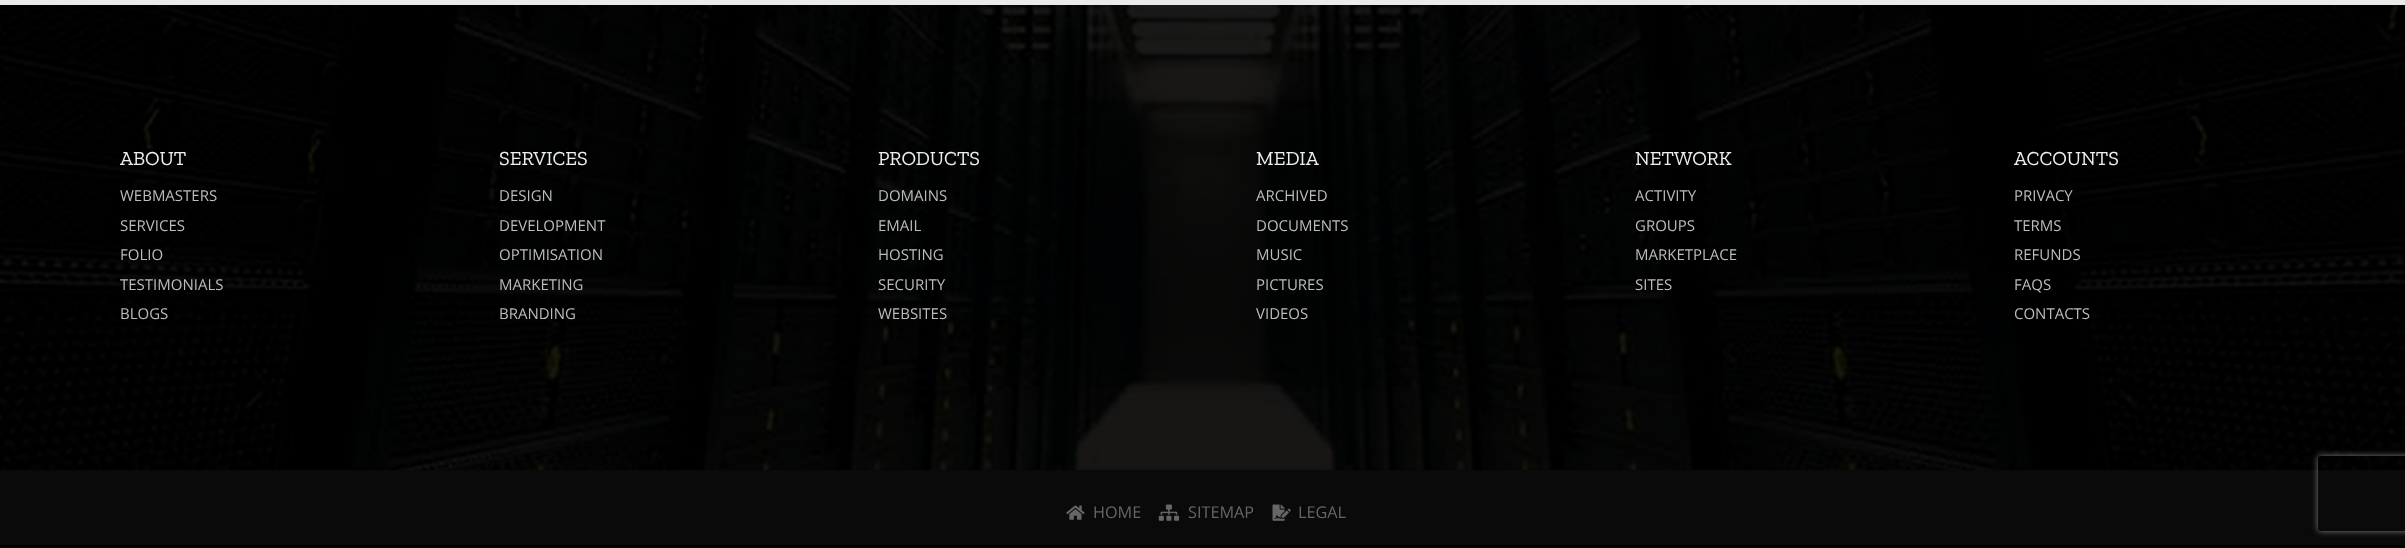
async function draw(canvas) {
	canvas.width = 2405;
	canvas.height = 548;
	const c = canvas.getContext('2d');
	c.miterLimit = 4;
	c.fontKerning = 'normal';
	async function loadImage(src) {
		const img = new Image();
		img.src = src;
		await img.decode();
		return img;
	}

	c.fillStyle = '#eaeaea';
	c.fillRect(0, 0, 2405, 548);
	c.fillStyle = '#000';
	c.fillRect(0, 5, 2405, 465);
	c.drawImage(await loadImage('img1.png'), 0, 5, 2405, 465);
	c.font = '20px Zilla Slab';
	c.fillStyle = '#eee';
	c.fillText('ABOUT', 120, 165);
	c.font = '15px Open Sans';
	c.fillStyle = '#bdbcbc';
	for (const [text, x, y] of [
		['WEBMASTERS', 120, 201],
		['SERVICES', 120, 231],
		['FOLIO', 120, 260],
		['TESTIMONIALS', 120, 290],
		['BLOGS', 120, 319],
	]) {
		c.fillText(text, x, y);
	}
	c.font = '20px Zilla Slab';
	c.fillStyle = '#eee';
	c.fillText('SERVICES', 499, 165);
	c.font = '15px Open Sans';
	c.fillStyle = '#bdbcbc';
	for (const [text, x, y] of [
		['DESIGN', 499, 201],
		['DEVELOPMENT', 499, 231],
		['OPTIMISATION', 499, 260],
		['MARKETING', 499, 290],
		['BRANDING', 499, 319],
	]) {
		c.fillText(text, x, y);
	}
	c.font = '20px Zilla Slab';
	c.fillStyle = '#eee';
	c.fillText('PRODUCTS', 878, 165);
	c.font = '15px Open Sans';
	c.fillStyle = '#bdbcbc';
	for (const [text, x, y] of [
		['DOMAINS', 878, 201],
		['EMAIL', 878, 231],
		['HOSTING', 878, 260],
		['SECURITY', 878, 290],
		['WEBSITES', 878, 319],
	]) {
		c.fillText(text, x, y);
	}
	c.font = '20px Zilla Slab';
	c.fillStyle = '#eee';
	c.fillText('MEDIA', 1256, 165);
	c.font = '15px Open Sans';
	c.fillStyle = '#bdbcbc';
	for (const [text, x, y] of [
		['ARCHIVED', 1256, 201],
		['DOCUMENTS', 1256, 231],
		['MUSIC', 1256, 260],
		['PICTURES', 1256, 290],
		['VIDEOS', 1256, 319],
	]) {
		c.fillText(text, x, y);
	}
	c.font = '20px Zilla Slab';
	c.fillStyle = '#eee';
	c.fillText('NETWORK', 1635, 165);
	c.font = '15px Open Sans';
	c.fillStyle = '#bdbcbc';
	for (const [text, x, y] of [
		['ACTIVITY', 1635, 201],
		['GROUPS', 1635, 231],
		['MARKETPLACE', 1635, 260],
		['SITES', 1635, 290],
	]) {
		c.fillText(text, x, y);
	}
	c.font = '20px Zilla Slab';
	c.fillStyle = '#eee';
	c.fillText('ACCOUNTS', 2014, 165);
	c.font = '15px Open Sans';
	c.fillStyle = '#bdbcbc';
	for (const [text, x, y] of [
		['PRIVACY', 2014, 201],
		['TERMS', 2014, 231],
		['REFUNDS', 2014, 260],
		['FAQS', 2014, 290],
		['CONTACTS', 2014, 319],
	]) {
		c.fillText(text, x, y);
	}
	c.fillStyle = '#0a0a0a';
	c.fillRect(0, 470, 2405, 75);
	c.drawImage(await loadImage('img2.png'), 1066, 505, 19, 15);
	c.font = '16.25px Open Sans';
	c.fillStyle = '#666';
	c.fillText('HOME', 1093, 518);
	c.drawImage(await loadImage('img3.png'), 1158, 504, 22, 17);
	c.fillText('SITEMAP', 1188, 518);
	c.drawImage(await loadImage('img4.png'), 1272, 504, 19, 17);
	c.fillText('LEGAL', 1298, 518);
	c.fillStyle = '#000';
	c.fillRect(0, 545, 2405, 3);
	c.save();
	c.beginPath();
	c.moveTo(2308, 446);
	c.lineTo(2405, 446);
	c.lineTo(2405, 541);
	c.lineTo(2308, 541);
	c.closePath();
	c.moveTo(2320.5, 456);
	c.lineTo(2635.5, 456);
	c.bezierCurveTo(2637, 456, 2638, 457, 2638, 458.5);
	c.lineTo(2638, 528.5);
	c.bezierCurveTo(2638, 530, 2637, 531, 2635.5, 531);
	c.lineTo(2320.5, 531);
	c.bezierCurveTo(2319, 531, 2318, 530, 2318, 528.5);
	c.lineTo(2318, 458.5);
	c.bezierCurveTo(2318, 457, 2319, 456, 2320.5, 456);
	c.closePath();
	c.clip('evenodd');
	c.fillStyle = '#808080';
	c.filter = 'blur(3px)';
	c.beginPath();
	c.roundRect(2318, 456, 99, 75, 2.5);
	c.fill();
	c.filter = 'none';
	c.restore();
}

draw(document.querySelector('canvas'));
